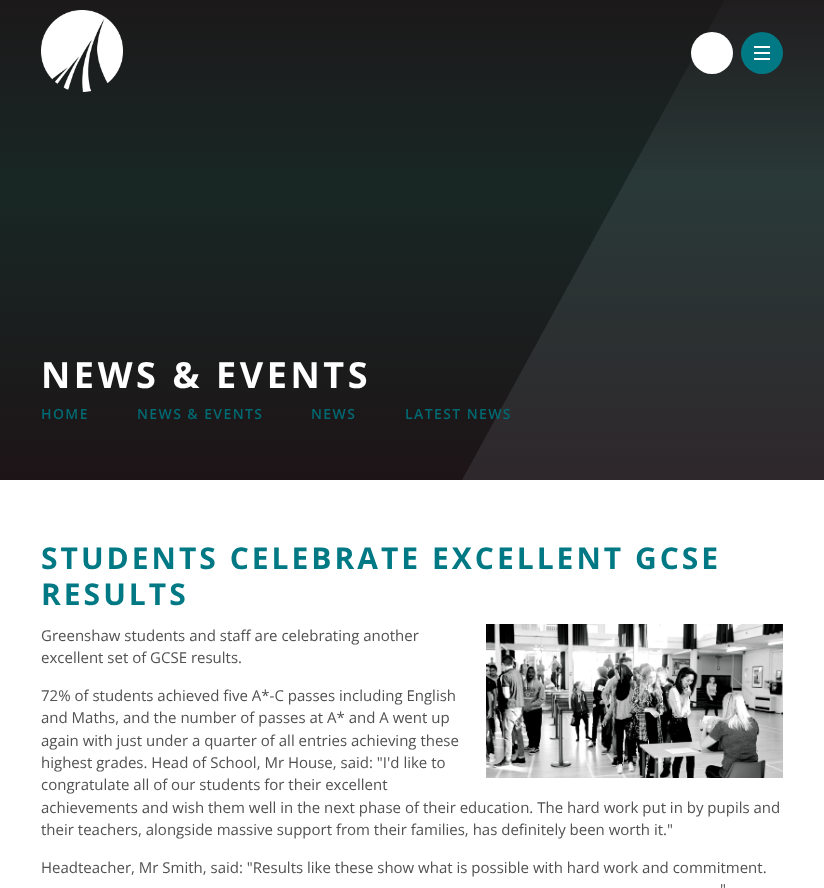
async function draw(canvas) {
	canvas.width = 824;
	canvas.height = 888;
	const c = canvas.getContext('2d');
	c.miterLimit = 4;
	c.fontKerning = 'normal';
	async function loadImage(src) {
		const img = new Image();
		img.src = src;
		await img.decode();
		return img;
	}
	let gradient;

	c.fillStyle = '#fff';
	c.fillRect(0, 0, 824, 888);
	c.fillStyle = '#182724';
	c.fillRect(0, 0, 824, 192);
	gradient = c.createLinearGradient(412, 480, 412, 192);
	gradient.addColorStop(0, '#1d1417');
	gradient.addColorStop(1, '#182724');
	c.fillStyle = gradient;
	c.fillRect(0, 192, 824, 288);
	c.fillStyle = '#c7d9e51a';
	c.beginPath();
	c.moveTo(824, -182);
	c.lineTo(462, 480);
	c.lineTo(824, 480);
	c.closePath();
	c.fill();
	gradient = c.createLinearGradient(412, 0, 412, 186);
	gradient.addColorStop(0, '#1d1417bf');
	gradient.addColorStop(1, '#1d141700');
	c.fillStyle = gradient;
	c.fillRect(0, 0, 824, 170);
	c.drawImage(await loadImage('img1.png'), 41, 10, 82, 82);
	c.fillStyle = '#fff';
	c.beginPath();
	c.arc(712, 53, 21, 0, 2 * Math.PI);
	c.fill();
	c.fillStyle = '#007985';
	c.beginPath();
	c.arc(762, 53, 21, 0, 2 * Math.PI);
	c.fill();
	for (const [x, y, w, h, color] of [
		[754, 46, 16, 2, '#fff'],
		[754, 58, 16, 2, '#fff'],
		[754, 52, 16, 2, '#fff'],
	]) {
		c.fillStyle = color;
		c.fillRect(x, y, w, h);
	}
	c.letterSpacing = '3.6px';
	c.font = 'bold 36px Open Sans';
	c.fillText('NEWS & EVENTS', 41, 388);
	c.letterSpacing = '1.4px';
	c.font = '600 14px Open Sans';
	c.fillStyle = '#006971';
	for (const [text, x, y] of [
		['HOME', 41, 419],
		['NEWS & EVENTS', 137, 419],
		['NEWS', 311, 419],
		['LATEST NEWS', 405, 419],
	]) {
		c.fillText(text, x, y);
	}
	c.letterSpacing = '3px';
	c.font = 'bold 30px Open Sans';
	c.fillStyle = '#007985';
	c.fillText('STUDENTS CELEBRATE EXCELLENT GCSE', 41, 569);
	c.fillText('RESULTS', 41, 605);
	c.letterSpacing = '0px';
	c.font = '15px Open Sans';
	c.fillStyle = '#515151';
	c.fillText('Greenshaw students and staff are celebrating another', 41, 641);
	c.fillText('excellent set of GCSE results.', 41, 663);
	c.drawImage(await loadImage('img2.png'), 486, 624, 297, 154);
	for (const [text, x, y] of [
		['72% of students achieved five A*-C passes including English', 41, 701],
		['and Maths, and the number of passes at A* and A went up', 41, 723],
		['again with just under a quarter of all entries achieving these', 41, 746],
		['highest grades. Head of School, Mr House, said: "I\'d like to', 41, 768],
		['congratulate all of our students for their excellent', 41, 790],
		['achievements and wish them well in the next phase of their education. The hard work put in by pupils and', 41, 813],
		['their teachers, alongside massive support from their families, has definitely been worth it."', 41, 835],
		['Headteacher, Mr Smith, said: "Results like these show what is possible with hard work and commitment.', 41, 873],
		['"', 720, 895],
	]) {
		c.fillText(text, x, y);
	}
}

draw(document.querySelector('canvas'));
